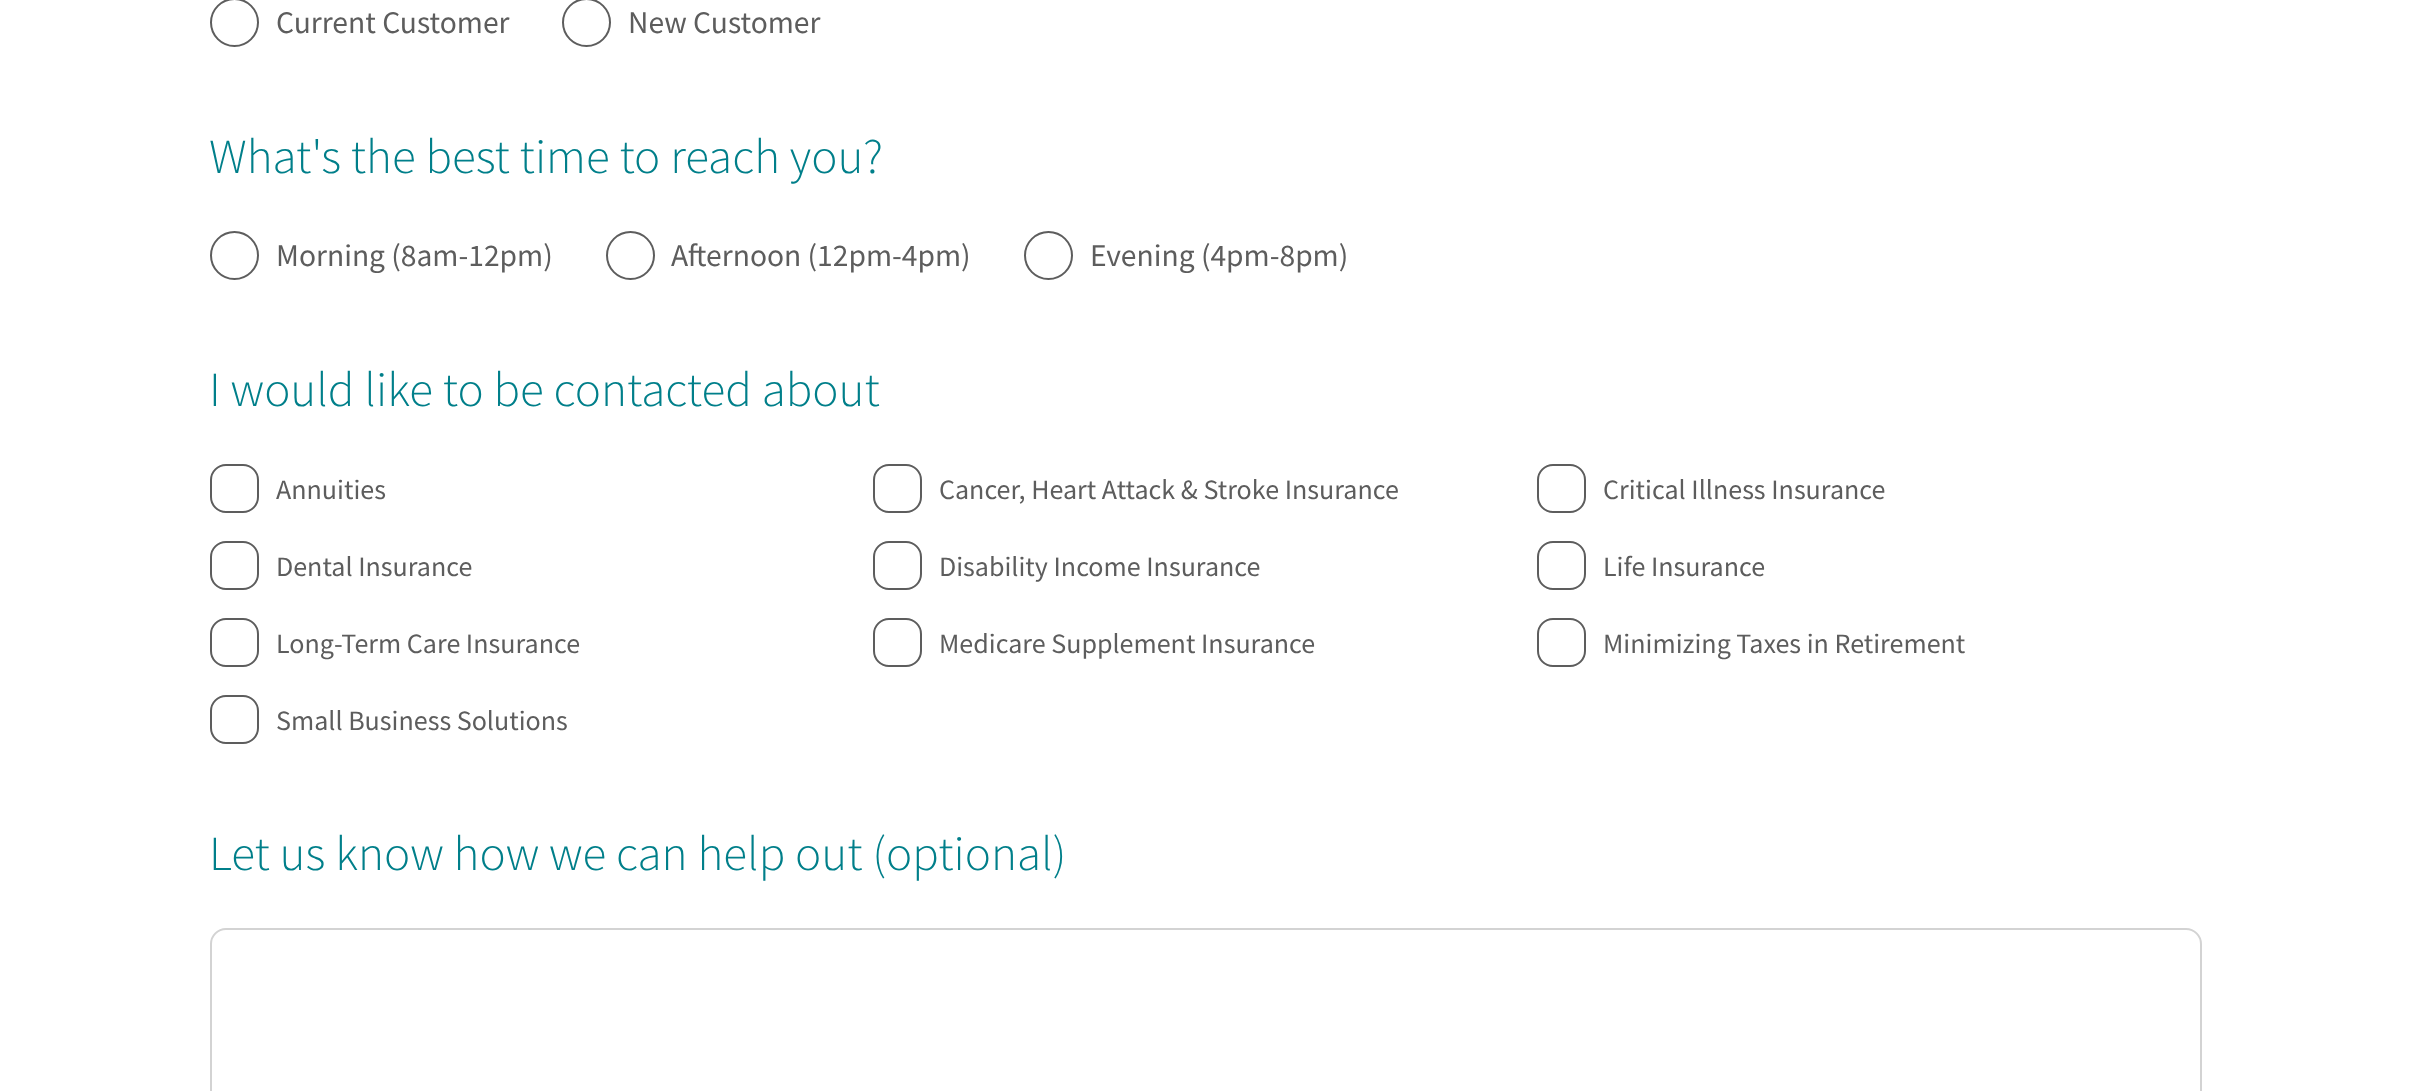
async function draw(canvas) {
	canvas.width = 2409;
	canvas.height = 1091;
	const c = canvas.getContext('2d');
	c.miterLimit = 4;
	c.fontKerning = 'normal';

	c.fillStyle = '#fff';
	c.fillRect(0, 0, 2409, 1091);
	c.beginPath();
	c.arc(234.5, 22.5, 23.5, 0, 2 * Math.PI);
	c.strokeStyle = '#5d5d5d';
	c.lineWidth = 2;
	c.stroke();
	c.font = '31.5px Source Sans Pro';
	c.fillStyle = '#5d5d5d';
	c.fillText('Current Customer', 276, 33);
	c.beginPath();
	c.arc(586.5, 22.5, 23.5, 0, 2 * Math.PI);
	c.stroke();
	c.fillText('New Customer', 628, 33);
	c.font = '300 49px Source Sans Pro';
	c.fillStyle = '#007f8a';
	c.fillText('What\'s the best time to reach you?', 209, 173);
	c.beginPath();
	c.arc(234.5, 255.5, 23.5, 0, 2 * Math.PI);
	c.stroke();
	c.font = '31.5px Source Sans Pro';
	c.fillStyle = '#5d5d5d';
	c.fillText('Morning (8am-12pm)', 276, 266);
	c.beginPath();
	c.arc(630.5, 255.5, 23.5, 0, 2 * Math.PI);
	c.stroke();
	c.fillText('Afternoon (12pm-4pm)', 671, 266);
	c.beginPath();
	c.arc(1048.5, 255.5, 23.5, 0, 2 * Math.PI);
	c.stroke();
	c.fillText('Evening (4pm-8pm)', 1090, 266);
	c.font = '300 49px Source Sans Pro';
	c.fillStyle = '#007f8a';
	c.fillText('I would like to be contacted about', 209, 406);
	c.beginPath();
	c.roundRect(211, 465, 47, 47, 15);
	c.stroke();
	c.font = '28px Source Sans Pro';
	c.fillStyle = '#5d5d5d';
	c.fillText('Annuities', 276, 499);
	c.beginPath();
	c.roundRect(874, 465, 47, 47, 15);
	c.stroke();
	c.fillText('Cancer, Heart Attack & Stroke Insurance', 939, 499);
	c.beginPath();
	c.roundRect(1538, 465, 47, 47, 15);
	c.stroke();
	c.fillText('Critical Illness Insurance', 1603, 499);
	c.beginPath();
	c.roundRect(211, 542, 47, 47, 15);
	c.stroke();
	c.fillText('Dental Insurance', 276, 576);
	c.beginPath();
	c.roundRect(874, 542, 47, 47, 15);
	c.stroke();
	c.fillText('Disability Income Insurance', 939, 576);
	c.beginPath();
	c.roundRect(1538, 542, 47, 47, 15);
	c.stroke();
	c.fillText('Life Insurance', 1603, 576);
	c.beginPath();
	c.roundRect(211, 619, 47, 47, 15);
	c.stroke();
	c.fillText('Long-Term Care Insurance', 276, 653);
	c.beginPath();
	c.roundRect(874, 619, 47, 47, 15);
	c.stroke();
	c.fillText('Medicare Supplement Insurance', 939, 653);
	c.beginPath();
	c.roundRect(1538, 619, 47, 47, 15);
	c.stroke();
	c.fillText('Minimizing Taxes in Retirement', 1603, 653);
	c.beginPath();
	c.roundRect(211, 696, 47, 47, 15);
	c.stroke();
	c.fillText('Small Business Solutions', 276, 730);
	c.font = '300 49px Source Sans Pro';
	c.fillStyle = '#007f8a';
	c.fillText('Let us know how we can help out (optional)', 209, 870);
	c.beginPath();
	c.roundRect(211, 929, 1990, 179, 15);
	c.strokeStyle = '#d3d3d3';
	c.stroke();
}

draw(document.querySelector('canvas'));
